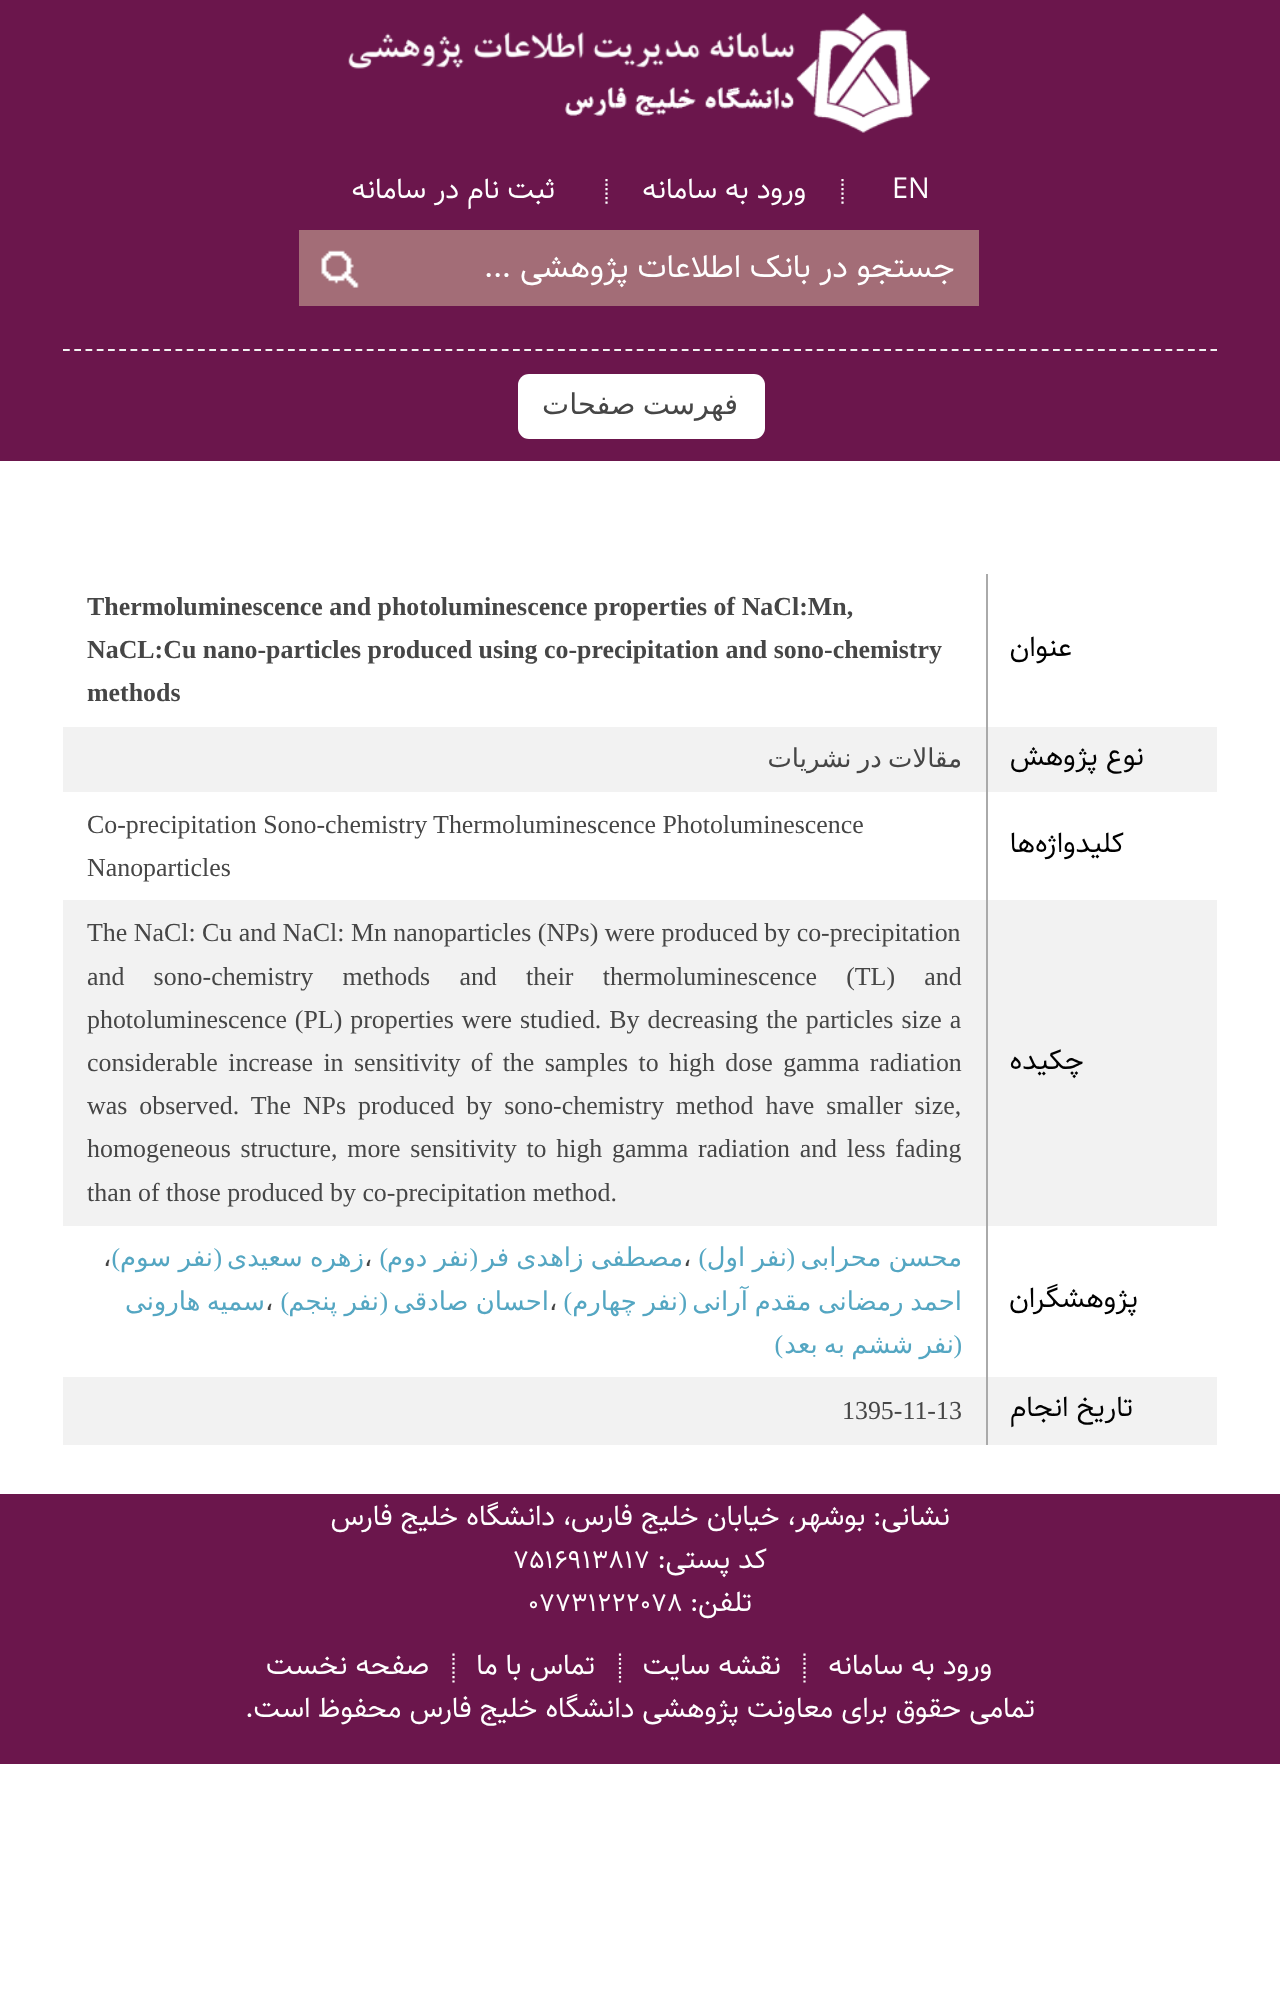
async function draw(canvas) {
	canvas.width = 1280;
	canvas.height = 2014;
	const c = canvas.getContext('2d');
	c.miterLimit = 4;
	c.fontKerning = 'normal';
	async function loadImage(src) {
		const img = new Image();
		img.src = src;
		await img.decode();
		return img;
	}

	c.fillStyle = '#fff';
	c.fillRect(0, 0, 1280, 2014);
	c.fillStyle = '#6b164c';
	c.fillRect(0, 0, 1280, 351);
	c.beginPath();
	c.moveTo(63, 350);
	c.lineTo(1217, 350);
	c.strokeStyle = '#f2f2f2';
	c.lineWidth = 2.2;
	c.setLineDash([6.75, 4.5]);
	c.stroke();
	c.drawImage(await loadImage('img1.png'), 348, 13, 582, 120);
	c.direction = 'rtl';
	c.font = '28.8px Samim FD';
	c.fillStyle = '#fff';
	c.fillText('ثبت نام در سامانه', 555, 198);
	c.beginPath();
	c.moveTo(606.5, 179);
	c.lineTo(606.5, 206);
	c.strokeStyle = '#fff';
	c.setLineDash([2.25, 2.25]);
	c.stroke();
	c.fillText('ورود به سامانه', 806, 198);
	c.beginPath();
	c.moveTo(842.5, 179);
	c.lineTo(842.5, 206);
	c.stroke();
	c.direction = 'ltr';
	c.fillText('EN', 892, 198);
	c.fillStyle = '#a36d77';
	c.fillRect(299, 230, 680, 76);
	c.drawImage(await loadImage('img2.png'), 321, 250, 38, 38);
	c.direction = 'rtl';
	c.font = '32.4px Samim FD';
	c.fillStyle = '#fff';
	c.fillText('جستجو در بانک اطلاعات پژوهشی ...', 955, 277);
	c.fillStyle = '#6b164c';
	c.fillRect(0, 351, 1280, 110);
	c.fillStyle = '#fff';
	c.beginPath();
	c.roundRect(518, 374, 247, 65, 11);
	c.fill();
	c.wordSpacing = '-2px';
	c.font = '28.8px DejaVu Sans';
	c.fillStyle = '#464646';
	c.fillText('فهرست صفحات', 738, 414);
	c.wordSpacing = '0px';
	c.direction = 'ltr';
	c.font = 'bold 25.9px Liberation Serif';
	for (const [text, x, y] of [
		['Thermoluminescence and photoluminescence properties of NaCl:Mn,', 87, 615],
		['NaCL:Cu nano-particles produced using co-precipitation and sono-chemistry', 87, 658],
		['methods', 87, 701],
	]) {
		c.fillText(text, x, y);
	}
	c.direction = 'rtl';
	c.font = '28.8px Samim FD';
	c.fillStyle = '#000';
	c.fillText('عنوان', 1072, 656);
	c.fillStyle = '#f2f2f2';
	c.fillRect(63, 727, 1154, 65);
	c.wordSpacing = '-2px';
	c.font = '25.9px DejaVu Sans';
	c.fillStyle = '#464646';
	c.fillText('مقالات در نشریات', 962, 767);
	c.wordSpacing = '0px';
	c.font = '28.8px Samim FD';
	c.fillStyle = '#000';
	c.fillText('نوع پژوهش', 1144, 765);
	c.direction = 'ltr';
	c.font = '25.9px Liberation Serif';
	c.fillStyle = '#464646';
	c.fillText('Co-precipitation Sono-chemistry Thermoluminescence Photoluminescence', 87, 833);
	c.fillText('Nanoparticles', 87, 876);
	c.direction = 'rtl';
	c.font = '28.8px Samim FD';
	c.fillStyle = '#000';
	c.fillText('کلیدواژه‌ها', 1124, 852);
	c.fillStyle = '#f2f2f2';
	c.fillRect(63, 900, 1154, 326);
	c.direction = 'ltr';
	c.font = '25.9px Liberation Serif';
	c.fillStyle = '#464646';
	c.fillText('The NaCl: Cu and NaCl: Mn nanoparticles (NPs) were produced by co-precipitation', 87, 941);
	c.wordSpacing = '22.75px';
	c.fillText('and sono-chemistry methods and their thermoluminescence (TL) and', 87, 985);
	c.wordSpacing = '1.5px';
	c.fillText('photoluminescence (PL) properties were studied. By decreasing the particles size a', 87, 1028);
	c.wordSpacing = '3.9px';
	c.fillText('considerable increase in sensitivity of the samples to high dose gamma radiation', 87, 1071);
	c.wordSpacing = '5.5px';
	c.fillText('was observed. The NPs produced by sono-chemistry method have smaller size,', 87, 1114);
	c.wordSpacing = '3.25px';
	c.fillText('homogeneous structure, more sensitivity to high gamma radiation and less fading', 87, 1157);
	c.wordSpacing = '0px';
	c.fillText('than of those produced by co-precipitation method.', 87, 1201);
	c.direction = 'rtl';
	c.font = '28.8px Samim FD';
	c.fillStyle = '#000';
	c.fillText('چکیده', 1084, 1069);
	c.direction = 'ltr';
	c.font = '25.9px DejaVu Sans';
	c.fillStyle = '#464646';
	c.fillText('،', 103, 1266);
	c.direction = 'rtl';
	c.font = '25.9px Liberation Serif';
	c.fillStyle = '#54a6c2';
	c.fillText(')', 120, 1266);
	c.wordSpacing = '-1px';
	c.font = '25.9px DejaVu Sans';
	c.fillText('نفر سوم', 213, 1266);
	c.wordSpacing = '0px';
	c.font = '25.9px Liberation Serif';
	c.fillText('(', 222, 1266);
	c.wordSpacing = '-1px';
	c.font = '25.9px DejaVu Sans';
	c.fillText('زهره سعیدی', 364, 1266);
	c.wordSpacing = '0px';
	c.direction = 'ltr';
	c.fillStyle = '#464646';
	c.fillText('،', 364, 1266);
	c.direction = 'rtl';
	c.font = '25.9px Liberation Serif';
	c.fillStyle = '#54a6c2';
	c.fillText(')', 388, 1266);
	c.wordSpacing = '-1px';
	c.font = '25.9px DejaVu Sans';
	c.fillText('نفر دوم', 469, 1266);
	c.wordSpacing = '0px';
	c.font = '25.9px Liberation Serif';
	c.fillText('(', 478, 1266);
	c.wordSpacing = '-1px';
	c.font = '25.9px DejaVu Sans';
	c.fillText('مصطفی زاهدی فر', 683, 1266);
	c.wordSpacing = '0px';
	c.direction = 'ltr';
	c.fillStyle = '#464646';
	c.fillText('،', 683, 1266);
	c.direction = 'rtl';
	c.font = '25.9px Liberation Serif';
	c.fillStyle = '#54a6c2';
	c.fillText(')', 707, 1266);
	c.wordSpacing = '-1px';
	c.font = '25.9px DejaVu Sans';
	c.fillText('نفر اول', 787, 1266);
	c.wordSpacing = '0px';
	c.font = '25.9px Liberation Serif';
	c.fillText('(', 795, 1266);
	c.wordSpacing = '-1px';
	c.font = '25.9px DejaVu Sans';
	c.fillText('محسن محرابی', 962, 1266);
	c.wordSpacing = '-2px';
	c.fillText('سمیه هارونی', 265, 1310);
	c.wordSpacing = '0px';
	c.direction = 'ltr';
	c.fillStyle = '#464646';
	c.fillText('،', 265, 1310);
	c.direction = 'rtl';
	c.font = '25.9px Liberation Serif';
	c.fillStyle = '#54a6c2';
	c.fillText(')', 289, 1310);
	c.wordSpacing = '-1px';
	c.font = '25.9px DejaVu Sans';
	c.fillText('نفر پنجم', 379, 1310);
	c.wordSpacing = '0px';
	c.font = '25.9px Liberation Serif';
	c.fillText('(', 388, 1310);
	c.wordSpacing = '-1px';
	c.font = '25.9px DejaVu Sans';
	c.fillText('احسان صادقی', 549, 1310);
	c.wordSpacing = '0px';
	c.direction = 'ltr';
	c.fillStyle = '#464646';
	c.fillText('،', 549, 1310);
	c.direction = 'rtl';
	c.font = '25.9px Liberation Serif';
	c.fillStyle = '#54a6c2';
	c.fillText(')', 572, 1310);
	c.wordSpacing = '-1.5px';
	c.font = '25.9px DejaVu Sans';
	c.fillText('نفر چهارم', 678, 1310);
	c.wordSpacing = '0px';
	c.font = '25.9px Liberation Serif';
	c.fillText('(', 687, 1310);
	c.wordSpacing = '-1.5px';
	c.font = '25.9px DejaVu Sans';
	c.fillText('احمد رمضانی مقدم آرانی', 962, 1310);
	c.wordSpacing = '0px';
	c.font = '25.9px Liberation Serif';
	c.fillText(')', 783, 1353);
	c.wordSpacing = '-2px';
	c.font = '25.9px DejaVu Sans';
	c.fillText('نفر ششم به بعد', 954, 1353);
	c.wordSpacing = '0px';
	c.font = '25.9px Liberation Serif';
	c.fillText('(', 962, 1353);
	c.font = '28.8px Samim FD';
	c.fillStyle = '#000';
	c.fillText('پژوهشگران', 1138, 1307);
	c.fillStyle = '#f2f2f2';
	c.fillRect(63, 1377, 1154, 68);
	c.direction = 'ltr';
	c.font = '25.9px Liberation Serif';
	c.fillStyle = '#464646';
	c.fillText('1395-11-13', 842, 1419);
	c.fillStyle = '#aaa';
	c.fillRect(986, 574, 2, 871);
	c.direction = 'rtl';
	c.font = '28.8px Samim FD';
	c.fillStyle = '#000';
	c.fillText('تاریخ انجام', 1133, 1416);
	c.fillStyle = '#6b164c';
	c.fillRect(0, 1494, 1280, 270);
	c.fillStyle = '#fff';
	c.fillText('نشانی: بوشهر، خیابان خلیج فارس، دانشگاه خلیج فارس', 950, 1525);
	c.direction = 'ltr';
	c.font = '25.9px Samim FD';
	c.fillText('7516913817', 513, 1568);
	c.direction = 'rtl';
	c.font = '28.8px Samim FD';
	c.fillText('کد پستی:', 767, 1568);
	c.direction = 'ltr';
	c.font = '25.9px Samim FD';
	c.fillText('07731222078', 528, 1611);
	c.direction = 'rtl';
	c.font = '28.8px Samim FD';
	c.fillText('تلفن:', 752, 1611);
	c.beginPath();
	c.moveTo(453.5, 1653.5);
	c.lineTo(453.5, 1682.5);
	c.stroke();
	c.fillText('صفحه نخست', 429, 1674);
	c.beginPath();
	c.moveTo(620, 1653.5);
	c.lineTo(620, 1682.5);
	c.stroke();
	c.fillText('تماس با ما', 595, 1674);
	c.beginPath();
	c.moveTo(804.5, 1653.5);
	c.lineTo(804.5, 1682.5);
	c.stroke();
	for (const [text, x, y] of [
		['نقشه سایت', 781, 1674],
		['ورود به سامانه', 992, 1674],
		['تمامی حقوق برای معاونت پژوهشی دانشگاه خلیج فارس محفوظ است.', 1035, 1717],
	]) {
		c.fillText(text, x, y);
	}
}

draw(document.querySelector('canvas'));
